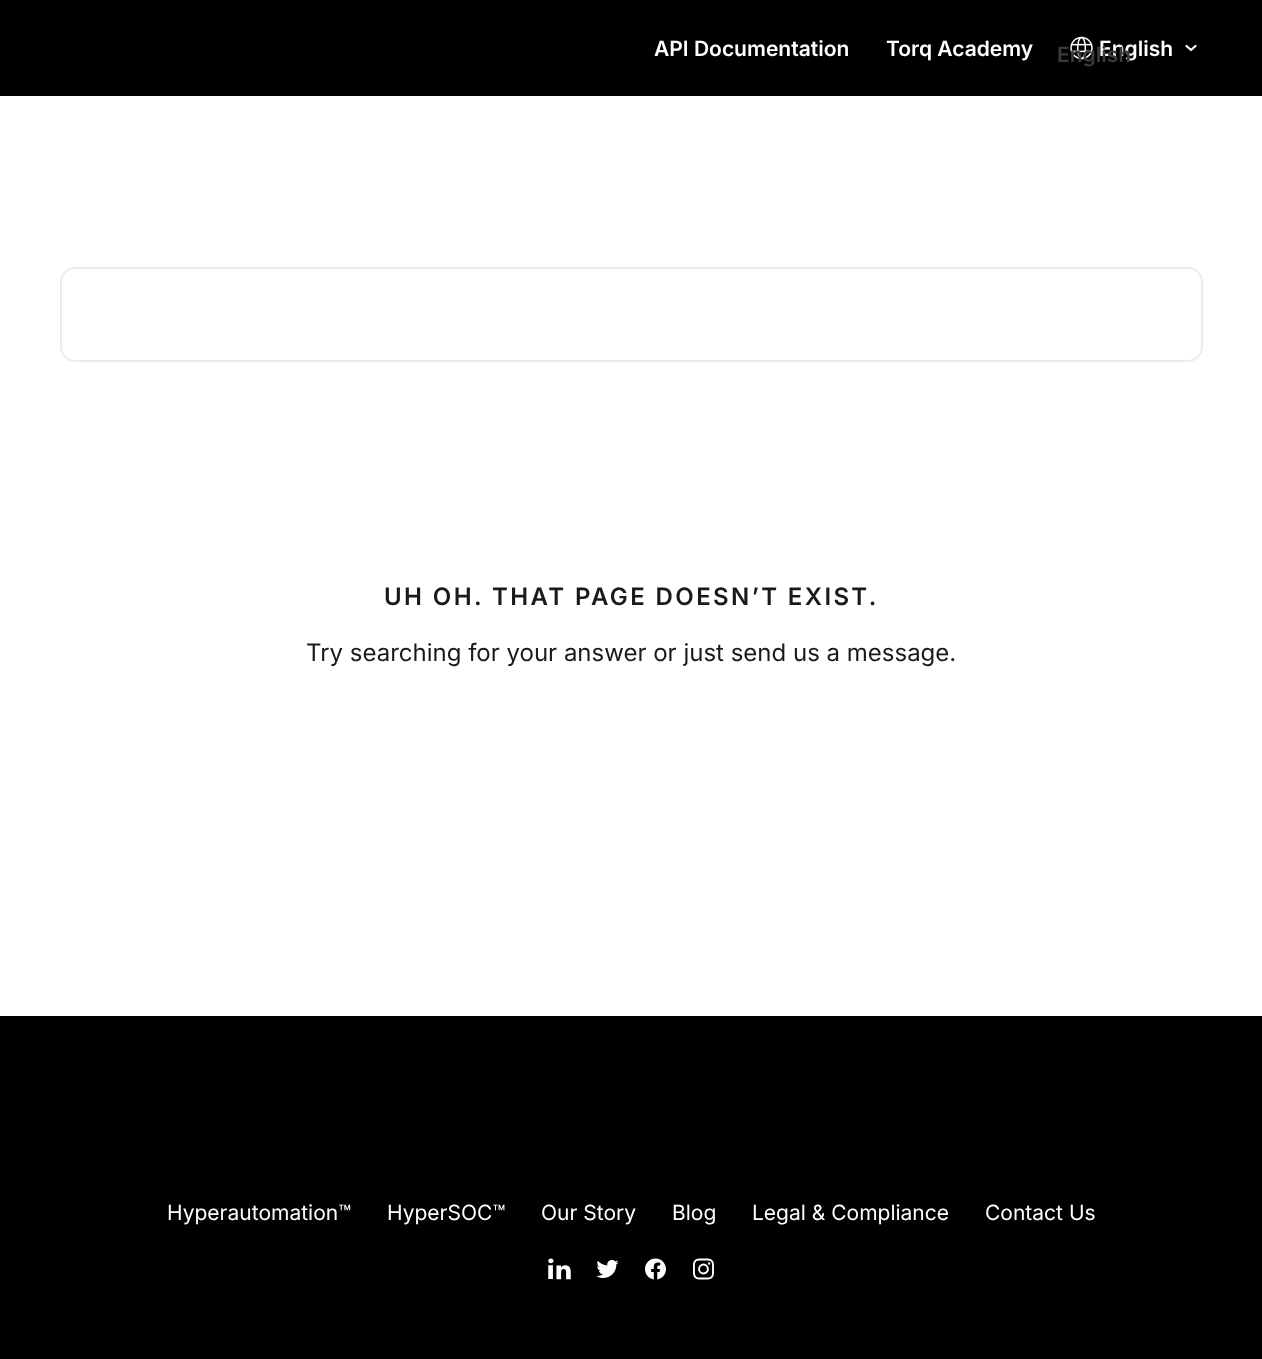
async function draw(canvas) {
	canvas.width = 1262;
	canvas.height = 1359;
	const c = canvas.getContext('2d');
	c.miterLimit = 4;
	c.fontKerning = 'normal';
	async function loadImage(src) {
		const img = new Image();
		img.src = src;
		await img.decode();
		return img;
	}

	c.fillStyle = '#fff';
	c.fillRect(0, 0, 1262, 1359);
	c.fillStyle = '#000';
	c.fillRect(0, 0, 1262, 96);
	c.font = '600 21px Inter';
	c.fillStyle = '#fff';
	c.fillText('API Documentation', 654, 56);
	c.fillText('Torq Academy', 886, 56);
	c.drawImage(await loadImage('img1.png'), 1070, 36, 23, 24);
	c.fillText('English', 1099, 56);
	c.fillStyle = '#3b3b3b';
	c.fillText('English', 1057, 62);
	c.beginPath();
	c.moveTo(1186.5, 46);
	c.lineTo(1191, 50);
	c.lineTo(1195.5, 46);
	c.strokeStyle = '#fff';
	c.lineWidth = 2.2;
	c.lineCap = 'round';
	c.lineJoin = 'round';
	c.stroke();
	c.beginPath();
	c.roundRect(61, 268, 1141, 93, 14);
	c.strokeStyle = '#00000014';
	c.lineWidth = 2;
	c.lineJoin = 'miter';
	c.stroke();
	c.letterSpacing = '2.4px';
	c.font = '600 24px Inter';
	c.fillStyle = '#1a1a1a';
	c.fillText('UH OH. THAT PAGE DOESN’T EXIST.', 384, 605);
	c.letterSpacing = '0px';
	c.font = '24px Inter';
	c.fillText('Try searching for your answer or just send us a message.', 306, 661);
	c.fillStyle = '#000';
	c.fillRect(0, 1016, 1262, 343);
	c.font = '21px Inter';
	c.fillStyle = '#fff';
	for (const [text, x, y] of [
		['Hyperautomation™', 167, 1220],
		['HyperSOC™', 387, 1220],
		['Our Story', 541, 1220],
		['Blog', 672, 1220],
		['Legal & Compliance', 752, 1220],
		['Contact Us', 985, 1220],
	]) {
		c.fillText(text, x, y);
	}
	c.drawImage(await loadImage('img2.png'), 548, 1258, 23, 22);
	c.drawImage(await loadImage('img3.png'), 596, 1260, 23, 18);
	c.drawImage(await loadImage('img4.png'), 645, 1258, 21, 22);
	c.drawImage(await loadImage('img5.png'), 693, 1258, 21, 22);
}

draw(document.querySelector('canvas'));
